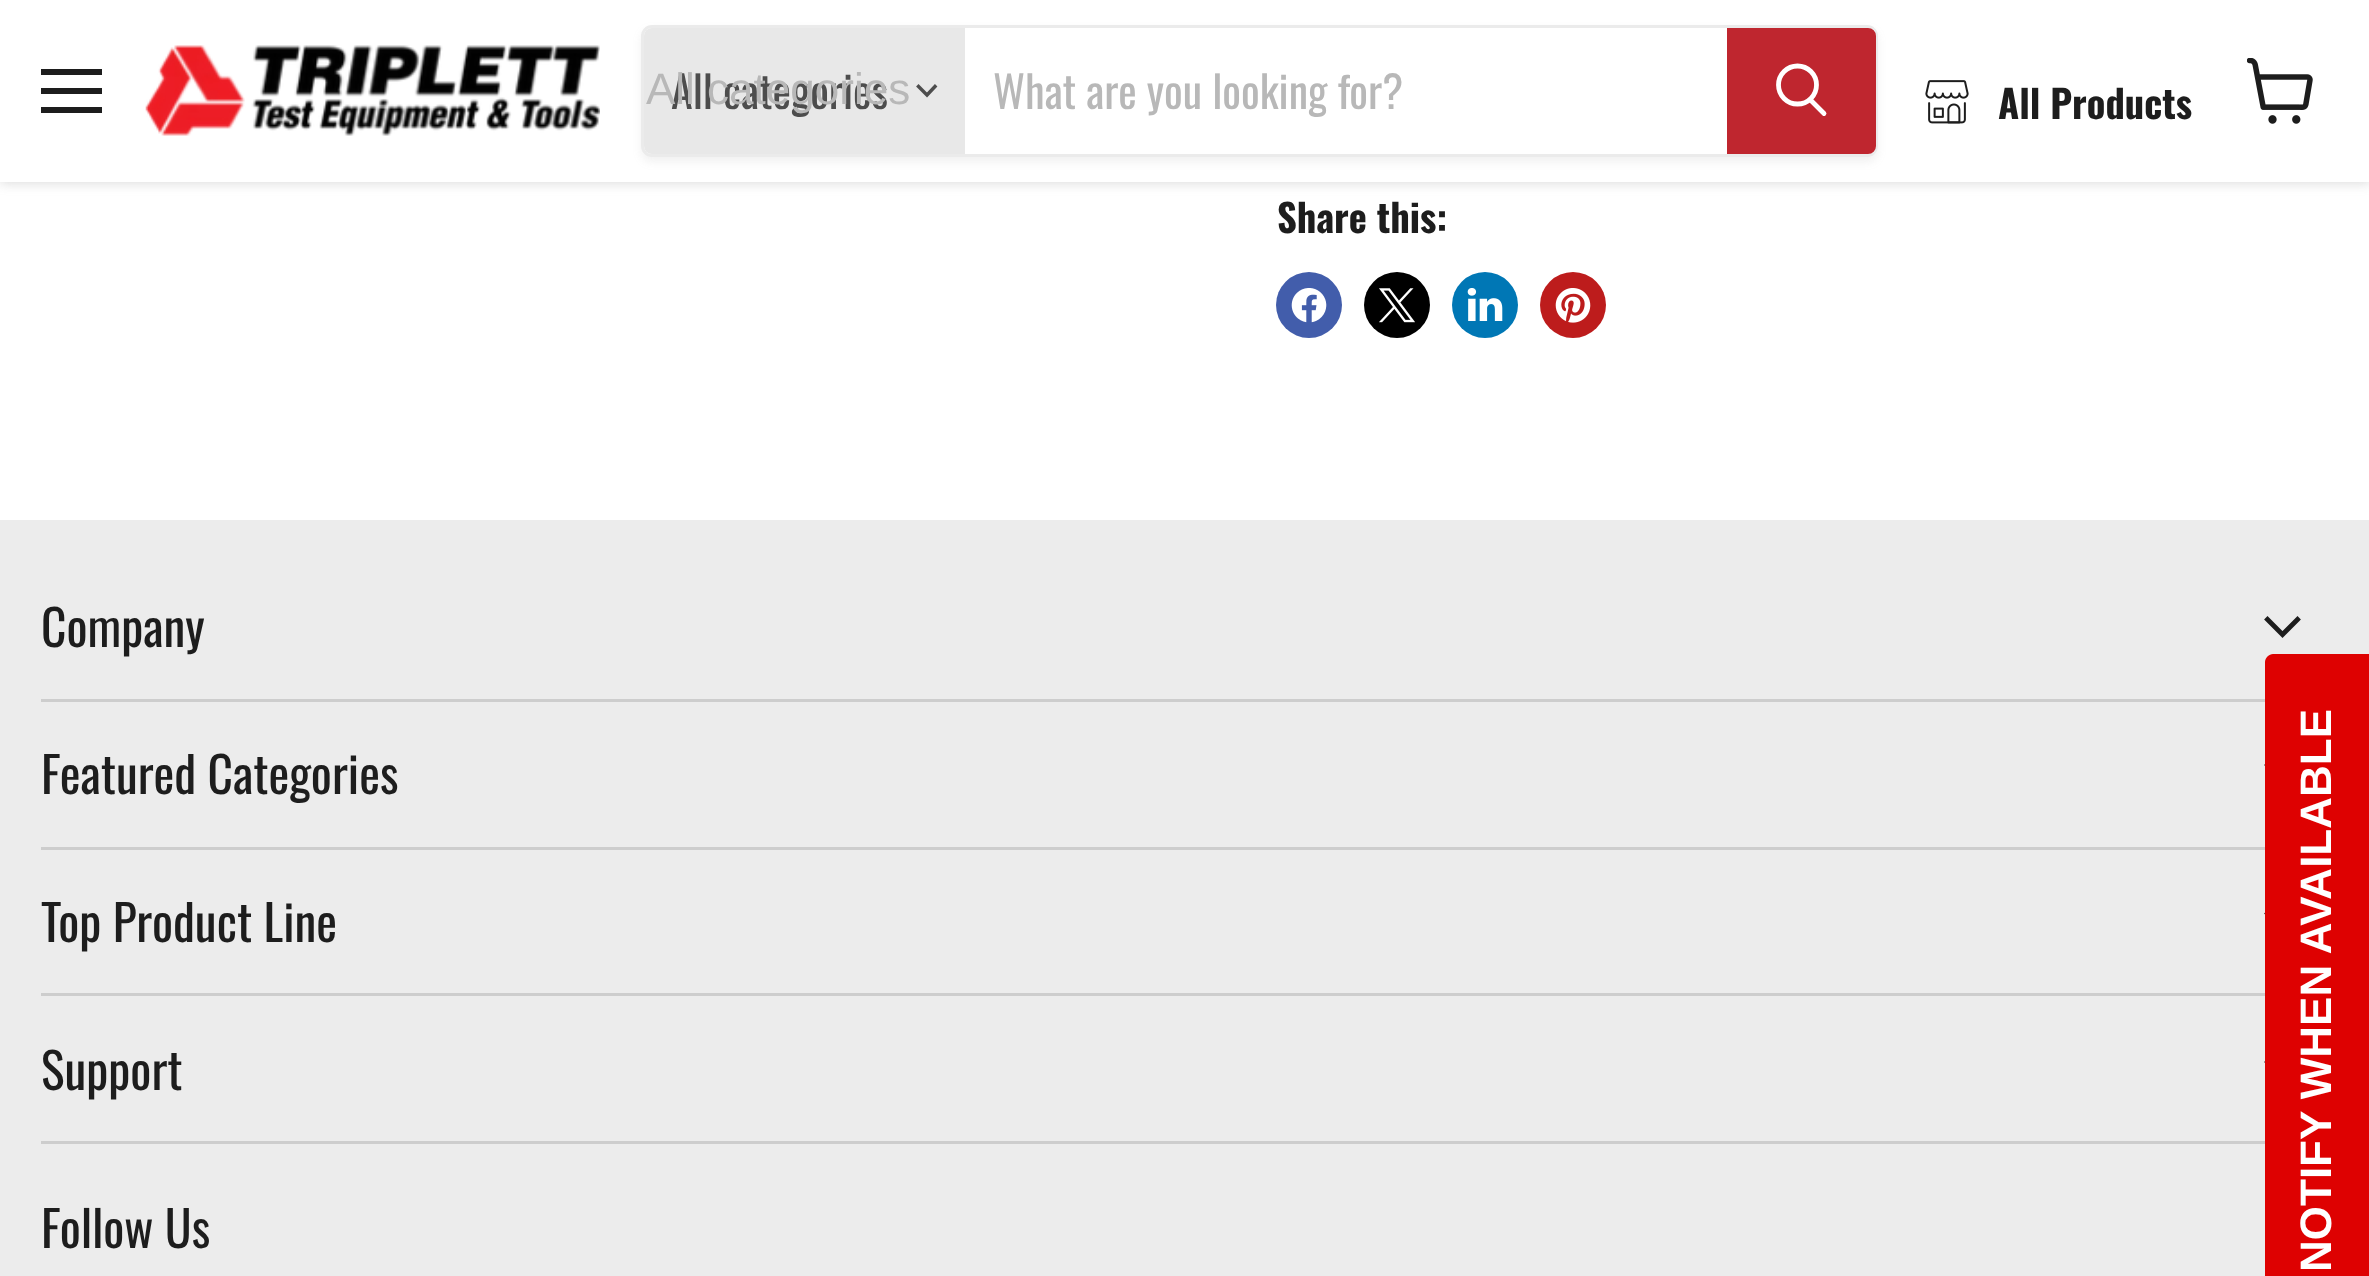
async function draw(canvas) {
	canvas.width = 2369;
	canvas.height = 1276;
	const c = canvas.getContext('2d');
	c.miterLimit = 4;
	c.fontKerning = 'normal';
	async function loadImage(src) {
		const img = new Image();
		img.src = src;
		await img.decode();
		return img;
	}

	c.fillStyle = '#fff';
	c.fillRect(0, 0, 2369, 1276);
	c.fillStyle = '#80808040';
	c.filter = 'blur(5.5px)';
	c.beginPath();
	c.rect(0, 3, 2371, 181);
	c.fill();
	c.filter = 'none';
	for (const [x, y, w, h, color] of [
		[0, 0, 2369, 182, '#fff'],
		[41, 69, 61, 6, '#1d1d1d'],
		[41, 88, 61, 6, '#1d1d1d'],
		[41, 107, 61, 6, '#1d1d1d'],
	]) {
		c.fillStyle = color;
		c.fillRect(x, y, w, h);
	}
	c.drawImage(await loadImage('img1.png'), 145, 45, 455, 91);
	c.save();
	c.beginPath();
	c.moveTo(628, 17);
	c.lineTo(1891, 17);
	c.lineTo(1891, 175);
	c.lineTo(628, 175);
	c.closePath();
	c.moveTo(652, 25);
	c.lineTo(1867, 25);
	c.bezierCurveTo(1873, 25, 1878, 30, 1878, 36);
	c.lineTo(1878, 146);
	c.bezierCurveTo(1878, 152, 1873, 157, 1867, 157);
	c.lineTo(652, 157);
	c.bezierCurveTo(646, 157, 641, 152, 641, 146);
	c.lineTo(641, 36);
	c.bezierCurveTo(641, 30, 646, 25, 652, 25);
	c.closePath();
	c.clip('evenodd');
	c.fillStyle = '#8080801c';
	c.filter = 'blur(4px)';
	c.beginPath();
	c.roundRect(641, 30, 1237, 132, 11);
	c.fill();
	c.filter = 'none';
	c.restore();
	c.beginPath();
	c.roundRect(642.5, 26.5, 1234, 129, 9.5);
	c.strokeStyle = '#80808029';
	c.lineWidth = 3;
	c.stroke();
	c.fillStyle = '#e8e8e8';
	c.beginPath();
	c.roundRect(644, 28, 321, 126, [8, 0, 0, 8]);
	c.fill();
	c.font = '44px Oswald';
	c.fillStyle = '#4d4d4d';
	c.fillText('All categories', 671, 109);
	c.font = '44px Liberation Sans';
	c.fillStyle = '#b8b8b8';
	c.fillText('All categories', 646, 104);
	c.beginPath();
	c.moveTo(927, 95);
	c.lineTo(935, 86.5);
	c.moveTo(927, 95);
	c.lineTo(918.5, 86.5);
	c.strokeStyle = '#4d4d4d';
	c.lineWidth = 3.4;
	c.lineCap = 'square';
	c.stroke();
	c.font = '44px Oswald';
	c.fillText('What are you looking for?', 993, 109);
	c.fillStyle = '#bf262f';
	c.beginPath();
	c.roundRect(1728.5, 29.5, 146, 123, [0, 6.5, 6.5, 0]);
	c.fill();
	c.strokeStyle = '#bf262f';
	c.lineWidth = 3;
	c.stroke();
	c.beginPath();
	c.moveTo(1824, 113.5);
	c.lineTo(1811, 100.5);
	c.strokeStyle = '#fff';
	c.lineWidth = 4.8;
	c.lineCap = 'round';
	c.stroke();
	c.beginPath();
	c.arc(1797.5, 85, 19, 0, 2 * Math.PI);
	c.stroke();
	c.drawImage(await loadImage('img2.png'), 1925, 80, 44, 44);
	c.font = 'bold 38.5px Oswald';
	c.fillStyle = '#1d1d1d';
	c.fillText('All Products', 1998, 119);
	c.drawImage(await loadImage('img3.png'), 2247, 58, 66, 66);
	c.fillText('Share this:', 1277, 233);
	c.fillStyle = '#425dab';
	c.beginPath();
	c.arc(1309, 305, 33, 0, 2 * Math.PI);
	c.fill();
	c.drawImage(await loadImage('img4.png'), 1291, 288, 36, 35);
	c.fillStyle = '#000';
	c.beginPath();
	c.arc(1397, 305, 33, 0, 2 * Math.PI);
	c.fill();
	c.drawImage(await loadImage('img5.png'), 1379, 288, 36, 35);
	c.fillStyle = '#0077b5';
	c.beginPath();
	c.arc(1485, 305, 33, 0, 2 * Math.PI);
	c.fill();
	c.drawImage(await loadImage('img6.png'), 1467, 288, 36, 33);
	c.fillStyle = '#bd1c1c';
	c.beginPath();
	c.arc(1573, 305, 33, 0, 2 * Math.PI);
	c.fill();
	c.drawImage(await loadImage('img7.png'), 1555, 288, 36, 35);
	c.fillStyle = '#ececec';
	c.fillRect(0, 520, 2369, 756);
	c.fillStyle = '#cdcdcd';
	c.fillRect(41, 699, 2224, 3);
	c.font = '49.5px Oswald';
	c.fillStyle = '#1d1d1d';
	c.fillText('Company', 41, 647);
	c.beginPath();
	c.moveTo(2282.5, 634.5);
	c.lineTo(2297.5, 619.5);
	c.moveTo(2282.5, 634.5);
	c.lineTo(2267.5, 619.5);
	c.strokeStyle = '#1d1d1d';
	c.lineCap = 'square';
	c.stroke();
	c.fillStyle = '#cdcdcd';
	c.fillRect(41, 847, 2224, 3);
	c.fillStyle = '#1d1d1d';
	c.fillText('Featured Categories', 41, 794);
	c.beginPath();
	c.moveTo(2282.5, 780.5);
	c.lineTo(2267.5, 765);
	c.stroke();
	c.fillStyle = '#cdcdcd';
	c.fillRect(41, 993, 2224, 3);
	c.fillStyle = '#1d1d1d';
	c.fillText('Top Product Line', 41, 942);
	c.beginPath();
	c.moveTo(2282.5, 929);
	c.lineTo(2267.5, 913.5);
	c.stroke();
	c.fillStyle = '#cdcdcd';
	c.fillRect(41, 1141, 2224, 3);
	c.fillStyle = '#1d1d1d';
	c.fillText('Support', 41, 1090);
	c.beginPath();
	c.moveTo(2282.5, 1077.5);
	c.lineTo(2267.5, 1062);
	c.stroke();
	c.fillText('Follow Us', 41, 1248);
	c.fillStyle = '#de0101';
	c.beginPath();
	c.moveTo(2265, 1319);
	c.lineTo(2265, 662);
	c.bezierCurveTo(2265, 658, 2269, 654, 2273, 654);
	c.lineTo(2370, 654);
	c.lineTo(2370, 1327);
	c.lineTo(2273, 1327);
	c.bezierCurveTo(2269, 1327, 2265, 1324, 2265, 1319);
	c.closePath();
	c.fill();
	c.font = 'bold 44px Liberation Sans';
	c.fillStyle = '#fff';
	c.save();
	c.translate(2331, 1272);
	c.rotate(-90 * Math.PI / 180);
	c.fillText('NOTIFY WHEN AVAILABLE', 0, 0);
	c.restore();
}

draw(document.querySelector('canvas'));
